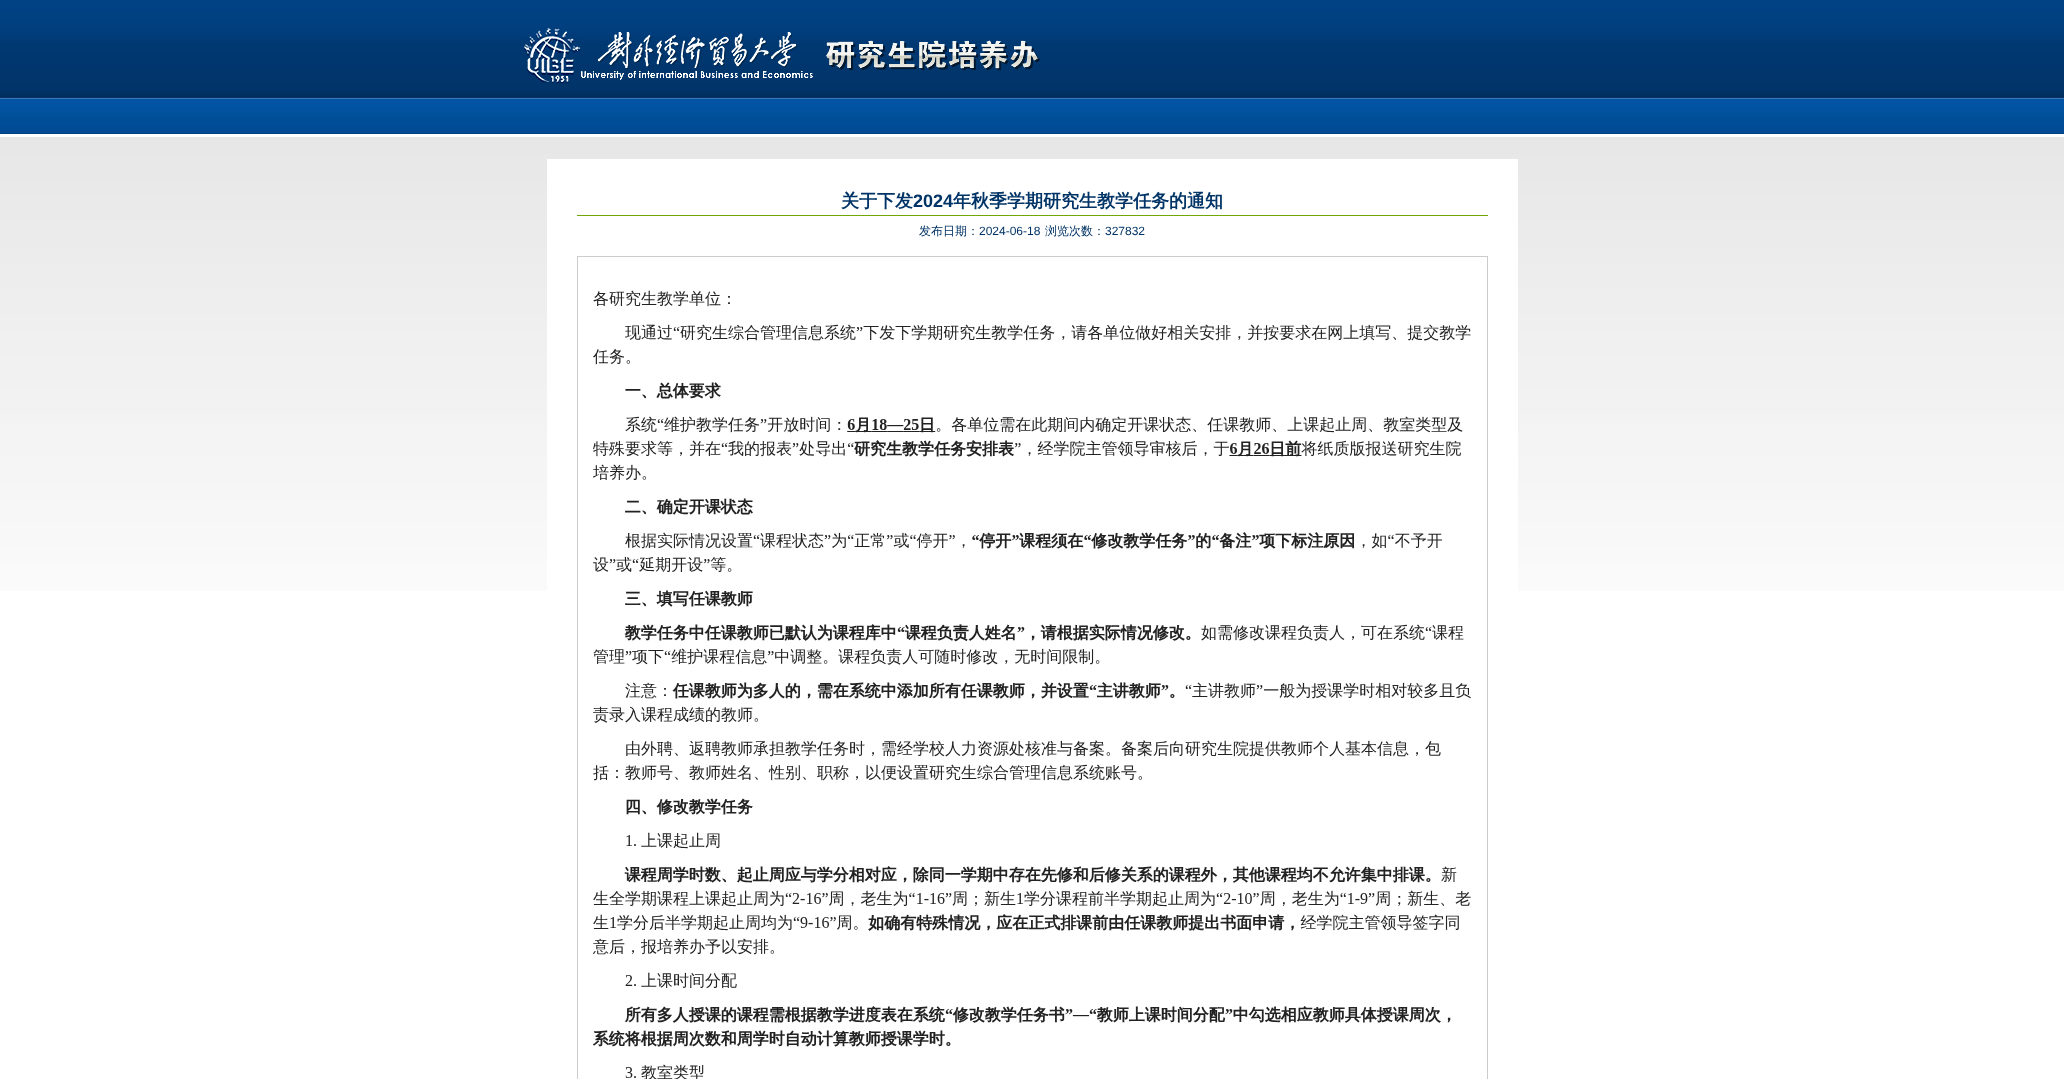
async function draw(canvas) {
	canvas.width = 2064;
	canvas.height = 1079;
	const c = canvas.getContext('2d');
	c.miterLimit = 4;
	c.fontKerning = 'normal';
	async function loadImage(src) {
		const img = new Image();
		img.src = src;
		await img.decode();
		return img;
	}

	c.fillStyle = '#fff';
	c.fillRect(0, 0, 2064, 1079);
	c.drawImage(await loadImage('img1.png'), 0, 0, 2064, 591);
	c.drawImage(await loadImage('img2.png'), 0, 134, 2064, 133);
	c.drawImage(await loadImage('img3.png'), 524, 26, 516, 58);
	c.fillRect(547, 159, 971, 432);
	c.font = 'bold 18px WenQuanYi Zen Hei';
	c.fillStyle = '#036';
	c.fillText('关于下发', 841, 207);
	c.font = 'bold 18px Liberation Sans';
	c.fillText('2024', 913, 207);
	c.font = 'bold 18px WenQuanYi Zen Hei';
	c.fillText('年秋季学期研究生教学任务的通知', 953, 207);
	c.fillStyle = '#70a609';
	c.fillRect(577, 215, 911, 1);
	c.font = '500 12px WenQuanYi Zen Hei';
	c.fillStyle = '#036';
	c.fillText('发布日期：', 919, 235);
	c.font = '12px Liberation Sans';
	c.fillText('2024-06-18', 979, 235);
	c.font = '500 12px WenQuanYi Zen Hei';
	c.fillText('浏览次数：', 1045, 235);
	c.font = '12px Liberation Sans';
	c.fillText('327832', 1105, 235);
	c.strokeStyle = '#ccc';
	c.strokeRect(577.5, 256.5, 910, 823);
	c.drawImage(await loadImage('img4.png'), 593, 290, 878, 789);
}

draw(document.querySelector('canvas'));
